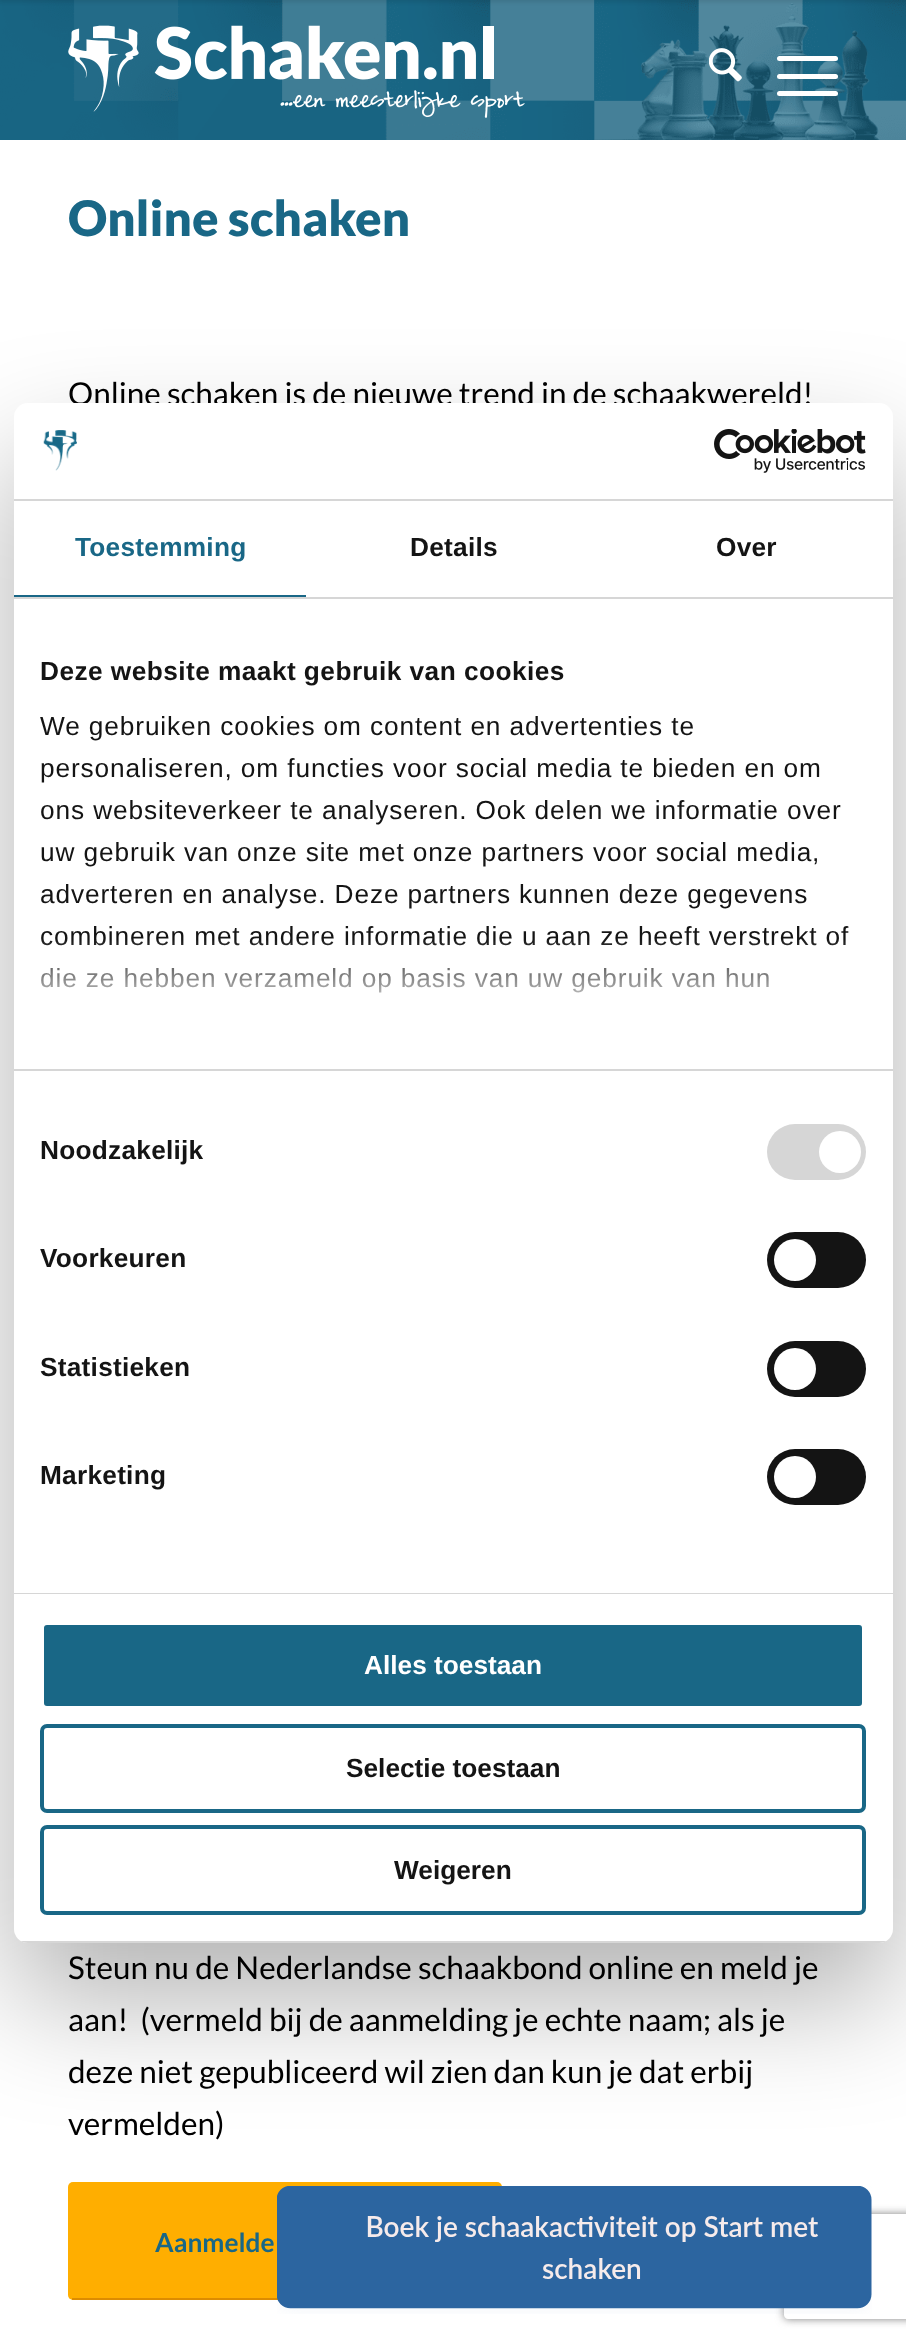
async function draw(canvas) {
	canvas.width = 906;
	canvas.height = 2342;
	const c = canvas.getContext('2d');
	c.miterLimit = 4;
	c.fontKerning = 'normal';
	async function loadImage(src) {
		const img = new Image();
		img.src = src;
		await img.decode();
		return img;
	}
	let gradient;

	c.fillStyle = '#fff';
	c.fillRect(0, 0, 906, 2342);
	c.drawImage(await loadImage('img1.png'), 0, 0, 906, 140);
	c.fillStyle = '#0000001a';
	c.filter = 'blur(2px)';
	c.beginPath();
	c.rect(-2, -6, 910, 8);
	c.fill();
	c.filter = 'none';
	c.drawImage(await loadImage('img2.png'), 68, 25, 457, 93);
	c.drawImage(await loadImage('img3.png'), 709, 48, 33, 34);
	c.fillStyle = '#fff';
	c.beginPath();
	c.roundRect(777, 74, 61, 5, 2.5);
	c.fill();
	c.beginPath();
	c.roundRect(777, 56, 61, 5, 2.5);
	c.fill();
	c.beginPath();
	c.roundRect(777, 91, 61, 5, 2.5);
	c.fill();
	c.font = '900 49px Lato';
	c.fillStyle = '#196786';
	c.fillText('Online schaken', 68, 236);
	c.font = '31.5px Lato';
	c.fillStyle = '#000';
	for (const [text, x, y] of [
		['Online schaken is de nieuwe trend in de schaakwereld!', 68, 405],
		['Steun nu de Nederlandse schaakbond online en meld je', 68, 1979],
		['aan!  (vermeld bij de aanmelding je echte naam; als je', 68, 2031],
		['deze niet gepubliceerd wil zien dan kun je dat erbij', 68, 2083],
		['vermelden)', 68, 2135],
	]) {
		c.fillText(text, x, y);
	}
	c.fillStyle = '#ffae00';
	c.beginPath();
	c.roundRect(68, 2182, 434, 118, 5);
	c.fill();
	c.fillStyle = '#dd8c00';
	c.fillRect(72, 2298, 206, 2);
	c.font = 'bold 26.25px Lato';
	c.fillStyle = '#196786';
	c.fillText('Aanmelde', 155, 2252);
	c.fillStyle = '#0000004d';
	c.filter = 'blur(59.5px)';
	c.beginPath();
	c.roundRect(14, 459, 879, 1540, 14);
	c.fill();
	c.filter = 'none';
	c.fillStyle = '#fff';
	c.beginPath();
	c.roundRect(14, 403, 879, 1540, 14);
	c.fill();
	c.fillStyle = '#d6d6d6';
	c.fillRect(14, 499, 879, 2);
	c.drawImage(await loadImage('img4.png'), 43, 430, 34, 41);
	c.drawImage(await loadImage('img5.png'), 714, 429, 152, 44);
	c.fillRect(14, 597, 879, 2);
	c.fillStyle = '#196786';
	c.fillRect(14, 595, 292, 2);
	c.letterSpacing = '0.25px';
	c.font = 'bold 26.25px Liberation Sans';
	c.fillText('Toestemming', 75, 556);
	c.fillStyle = '#141414';
	c.fillText('Details', 410, 556);
	c.fillText('Over', 716, 556);
	c.fillStyle = '#d6d6d6';
	c.fillRect(14, 1069, 879, 2);
	c.letterSpacing = '0.45px';
	c.fillStyle = '#141414';
	c.fillText('Deze website maakt gebruik van cookies', 40, 680);
	c.letterSpacing = '0.88px';
	c.font = '26.25px Liberation Sans';
	for (const [text, x, y] of [
		['We gebruiken cookies om content en advertenties te', 40, 735],
		['personaliseren, om functies voor social media te bieden en om', 40, 777],
		['ons websiteverkeer te analyseren. Ook delen we informatie over', 40, 819],
		['uw gebruik van onze site met onze partners voor social media,', 40, 861],
		['adverteren en analyse. Deze partners kunnen deze gegevens', 40, 903],
		['combineren met andere informatie die u aan ze heeft verstrekt of', 40, 945],
		['die ze hebben verzameld op basis van uw gebruik van hun', 40, 987],
	]) {
		c.fillText(text, x, y);
	}
	gradient = c.createLinearGradient(442, 1069, 442, 938);
	gradient.addColorStop(0, '#fff');
	gradient.addColorStop(0.5, '#ffffffcc');
	gradient.addColorStop(1, '#ffffff00');
	c.fillStyle = gradient;
	c.fillRect(41, 940, 805, 53);
	c.fillStyle = '#d6d6d6';
	c.fillRect(14, 1593, 879, 1);
	c.letterSpacing = '0.25px';
	c.font = 'bold 26.25px Liberation Sans';
	c.fillStyle = '#141414';
	c.fillText('Noodzakelijk', 40, 1159);
	c.fillStyle = '#d6d6d6';
	c.beginPath();
	c.roundRect(767, 1124, 99, 56, 28);
	c.fill();
	c.fillStyle = '#fff';
	c.beginPath();
	c.arc(840, 1152, 21, 0, 2 * Math.PI);
	c.fill();
	c.fillStyle = '#141414';
	c.fillText('Voorkeuren', 40, 1267);
	c.beginPath();
	c.roundRect(767, 1232, 99, 56, 28);
	c.fill();
	c.fillStyle = '#fff';
	c.beginPath();
	c.arc(795, 1260, 21, 0, 2 * Math.PI);
	c.fill();
	c.fillStyle = '#141414';
	c.fillText('Statistieken', 40, 1376);
	c.beginPath();
	c.roundRect(767, 1341, 99, 56, 28);
	c.fill();
	c.fillStyle = '#fff';
	c.beginPath();
	c.arc(795, 1369, 21, 0, 2 * Math.PI);
	c.fill();
	c.fillStyle = '#141414';
	c.fillText('Marketing', 40, 1484);
	c.beginPath();
	c.roundRect(767, 1449, 99, 56, 28);
	c.fill();
	c.fillStyle = '#fff';
	c.beginPath();
	c.arc(795, 1477, 21, 0, 2 * Math.PI);
	c.fill();
	c.save();
	c.beginPath();
	c.roundRect(14, 403, 879, 1540, 14);
	c.clip();
	c.fillStyle = '#d6d6d6';
	c.fillRect(14, 1941, 879, 2);
	c.restore();
	c.fillStyle = '#196786';
	c.beginPath();
	c.roundRect(42, 1623, 822, 85, 5);
	c.fill();
	c.strokeStyle = '#fff';
	c.lineWidth = 4;
	c.stroke();
	c.letterSpacing = '0px';
	c.fillStyle = '#fff';
	c.fillText('Alles toestaan', 364, 1674);
	c.beginPath();
	c.roundRect(42, 1726, 822, 85, 5);
	c.strokeStyle = '#196786';
	c.stroke();
	c.fillStyle = '#141414';
	c.fillText('Selectie toestaan', 346, 1777);
	c.beginPath();
	c.roundRect(42, 1827, 822, 86, 5);
	c.stroke();
	c.fillText('Weigeren', 394, 1879);
	c.save();
	c.beginPath();
	c.moveTo(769, 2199);
	c.lineTo(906, 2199);
	c.lineTo(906, 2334);
	c.lineTo(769, 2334);
	c.closePath();
	c.moveTo(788, 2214);
	c.lineTo(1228, 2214);
	c.bezierCurveTo(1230, 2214, 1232, 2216, 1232, 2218);
	c.lineTo(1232, 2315);
	c.bezierCurveTo(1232, 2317, 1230, 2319, 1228, 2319);
	c.lineTo(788, 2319);
	c.bezierCurveTo(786, 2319, 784, 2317, 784, 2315);
	c.lineTo(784, 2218);
	c.bezierCurveTo(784, 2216, 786, 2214, 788, 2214);
	c.closePath();
	c.clip('evenodd');
	c.fillStyle = '#808080';
	c.filter = 'blur(4.5px)';
	c.beginPath();
	c.roundRect(784, 2214, 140, 105, 4);
	c.fill();
	c.filter = 'none';
	c.restore();
	c.drawImage(await loadImage('img6.png'), 277, 2186, 595, 128);
}

draw(document.querySelector('canvas'));
